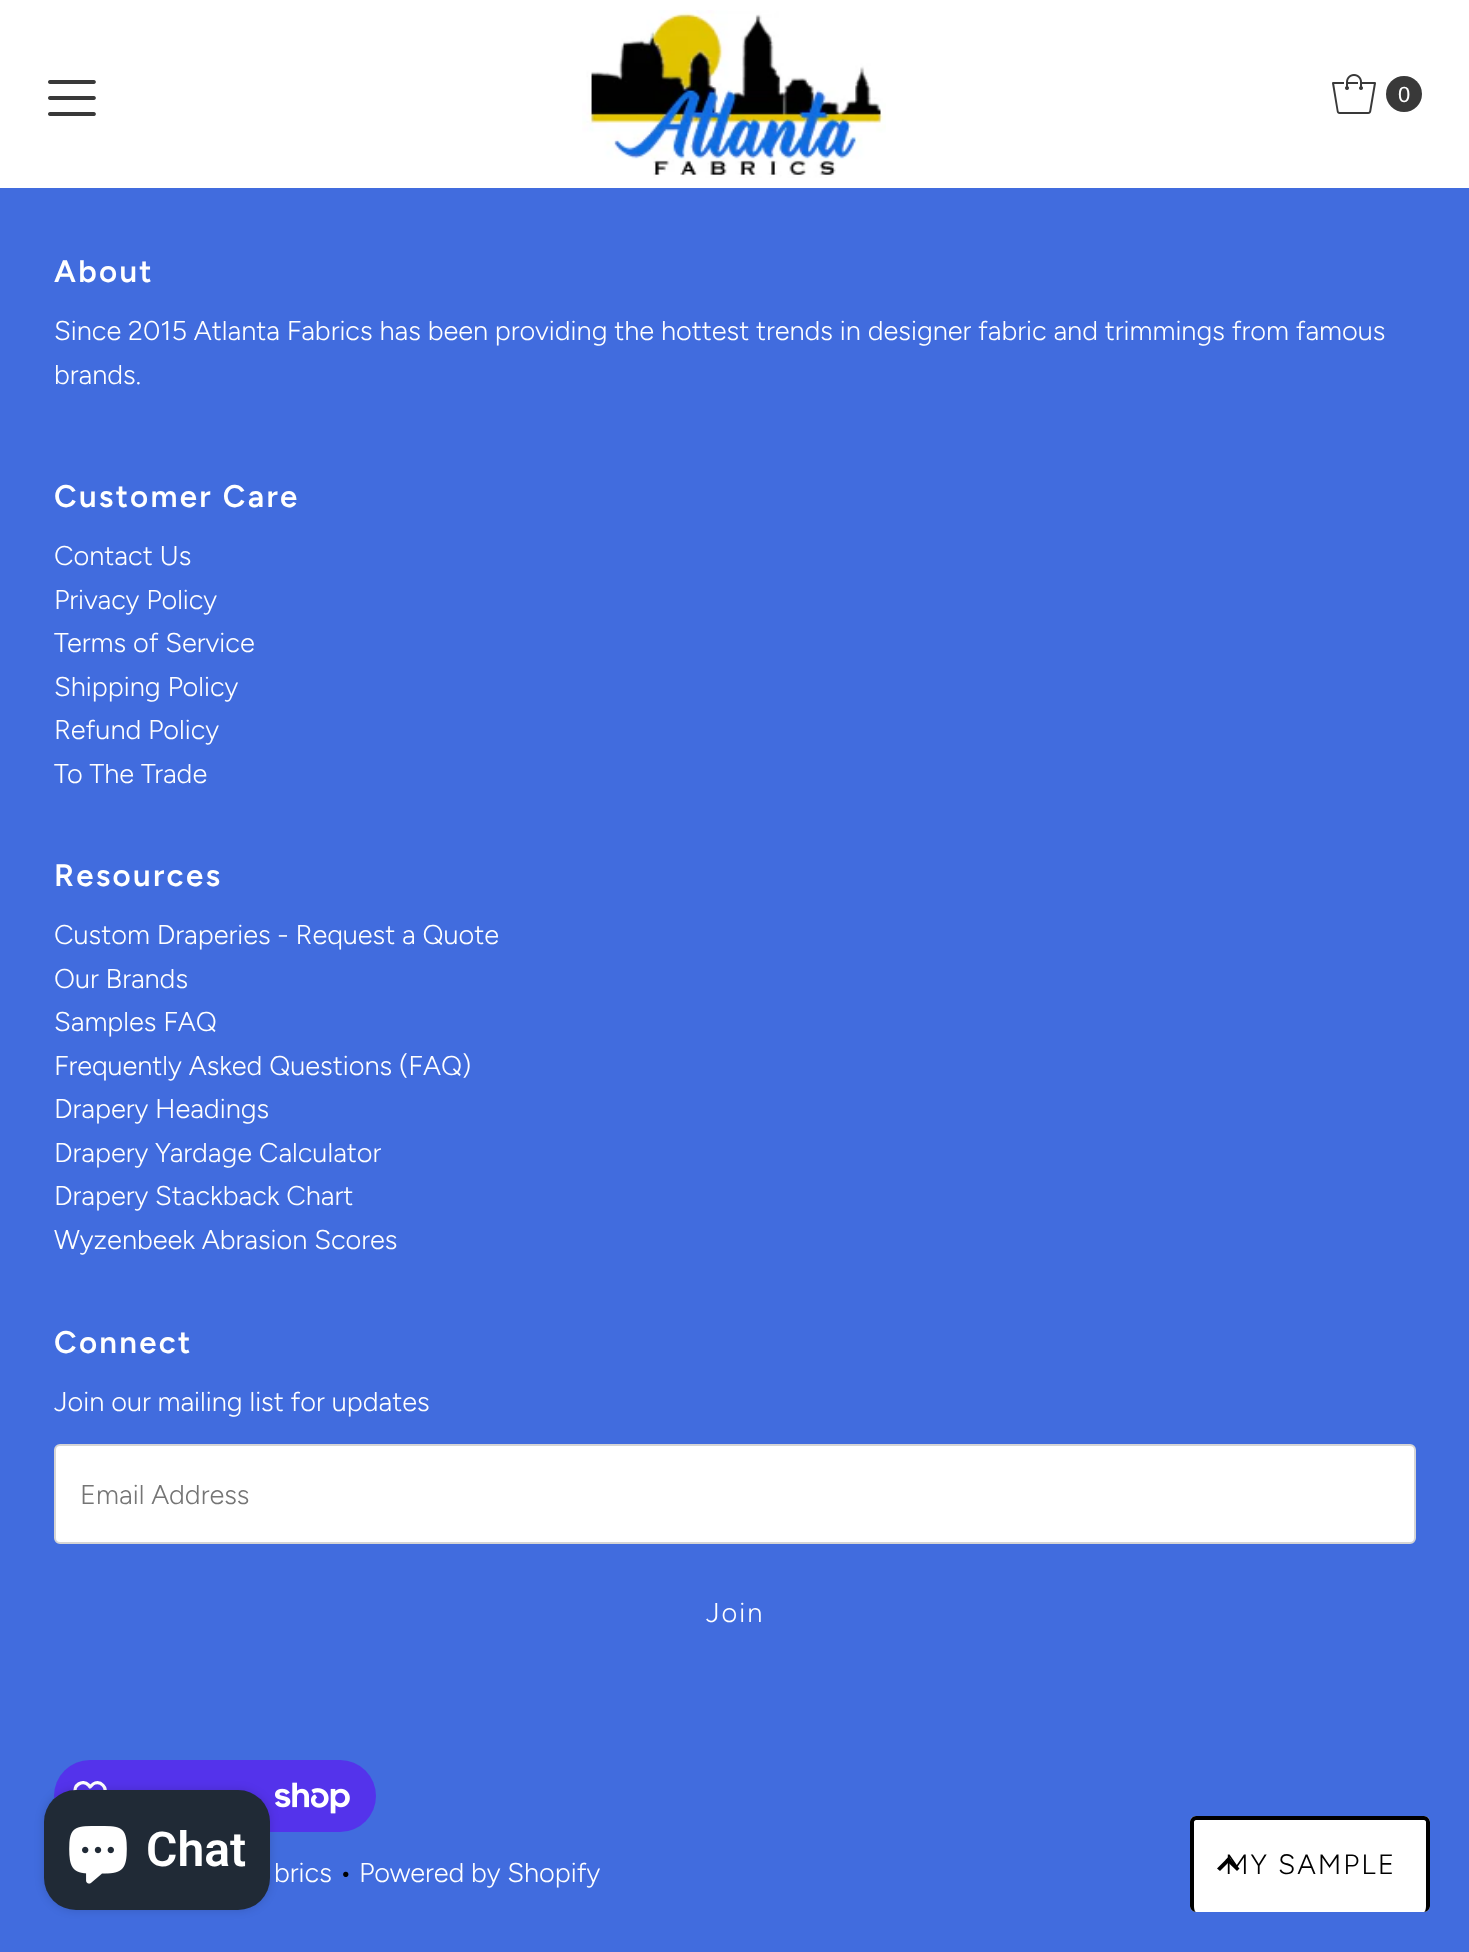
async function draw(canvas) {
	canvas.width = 1469;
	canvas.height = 1952;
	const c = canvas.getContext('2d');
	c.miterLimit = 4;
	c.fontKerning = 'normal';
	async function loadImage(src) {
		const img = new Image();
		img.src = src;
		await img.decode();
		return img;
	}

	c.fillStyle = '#416cde';
	c.fillRect(0, 0, 1469, 1952);
	c.fillStyle = '#fff';
	c.fillRect(0, 0, 1469, 188);
	c.drawImage(await loadImage('img1.png'), 48, 80, 48, 36);
	c.drawImage(await loadImage('img2.png'), 582, 10, 304, 168);
	c.drawImage(await loadImage('img3.png'), 1332, 74, 44, 40);
	c.fillStyle = '#393939';
	c.beginPath();
	c.arc(1404, 94, 18, 0, 2 * Math.PI);
	c.fill();
	c.font = '22px Liberation Sans';
	c.fillStyle = '#fff';
	c.fillText('0', 1398, 102);
	c.letterSpacing = '2.3px';
	c.font = '600 31.25px Figtree';
	c.fillText('About', 54, 282);
	c.letterSpacing = '0px';
	c.font = '300 27.2px Figtree';
	c.fillText('Since 2015 Atlanta Fabrics has been providing the hottest trends in designer fabric and trimmings from famous', 54, 340);
	c.fillText('brands.', 54, 384);
	c.letterSpacing = '2.3px';
	c.font = '600 31.25px Figtree';
	c.fillText('Customer Care', 54, 507);
	c.letterSpacing = '0px';
	c.font = '300 27.2px Figtree';
	for (const [text, x, y] of [
		['Contact Us', 54, 565],
		['Privacy Policy', 54, 609],
		['Terms of Service', 54, 652],
		['Shipping Policy', 54, 696],
		['Refund Policy', 54, 739],
		['To The Trade', 54, 783],
	]) {
		c.fillText(text, x, y);
	}
	c.letterSpacing = '2.3px';
	c.font = '600 31.25px Figtree';
	c.fillText('Resources', 54, 886);
	c.letterSpacing = '0px';
	c.font = '300 27.2px Figtree';
	for (const [text, x, y] of [
		['Custom Draperies - Request a Quote', 54, 944],
		['Our Brands', 54, 988],
		['Samples FAQ', 54, 1031],
		['Frequently Asked Questions (FAQ)', 54, 1075],
		['Drapery Headings', 54, 1118],
		['Drapery Yardage Calculator', 54, 1162],
		['Drapery Stackback Chart', 54, 1205],
		['Wyzenbeek Abrasion Scores', 54, 1249],
	]) {
		c.fillText(text, x, y);
	}
	c.letterSpacing = '2.3px';
	c.font = '600 31.25px Figtree';
	c.fillText('Connect', 54, 1353);
	c.letterSpacing = '0px';
	c.font = '300 27.2px Figtree';
	c.fillText('Join our mailing list for updates', 54, 1411);
	c.beginPath();
	c.roundRect(55, 1445, 1360, 98, 5);
	c.fill();
	c.strokeStyle = '#d5d5d5';
	c.lineWidth = 2;
	c.stroke();
	c.fillStyle = '#757575';
	c.fillText('Email Address', 80, 1504);
	c.letterSpacing = '2px';
	c.fillStyle = '#fff';
	c.fillText('Join', 706, 1622);
	c.fillStyle = '#5433eb';
	c.beginPath();
	c.roundRect(54, 1760, 322, 72, 36);
	c.fill();
	c.beginPath();
	c.moveTo(88.5, 1785);
	c.lineTo(90, 1787);
	c.bezierCurveTo(91.5, 1785.5, 93, 1783.5, 95, 1783);
	c.bezierCurveTo(101, 1781, 107, 1787.5, 104.5, 1793.5);
	c.bezierCurveTo(103.5, 1796.5, 100.5, 1798.5, 98.5, 1800.5);
	c.lineTo(90, 1809.5);
	c.lineTo(81.5, 1800.5);
	c.bezierCurveTo(79.5, 1798.5, 76.5, 1796.5, 75.5, 1793.5);
	c.bezierCurveTo(72.5, 1785.5, 82.5, 1779, 88.5, 1785);
	c.closePath();
	c.strokeStyle = '#fff';
	c.lineWidth = 3.3;
	c.lineJoin = 'round';
	c.stroke();
	c.drawImage(await loadImage('img4.png'), 275, 1782, 75, 32);
	c.letterSpacing = '0px';
	c.fillStyle = '#fff';
	c.fillText('brics', 274, 1882);
	c.fillStyle = '#000';
	c.fillText('•', 339, 1882);
	c.fillStyle = '#fff';
	c.fillText('Powered by Shopify', 359, 1882);
	c.fillStyle = '#00000026';
	c.filter = 'blur(5px)';
	c.beginPath();
	c.roundRect(44, 1790, 226, 120, 32);
	c.fill();
	c.filter = 'none';
	c.fillStyle = '#202a36';
	c.beginPath();
	c.roundRect(44, 1790, 226, 120, 32);
	c.fill();
	c.drawImage(await loadImage('img5.png'), 69, 1826, 58, 58);
	c.font = '600 48px Roboto';
	c.fillStyle = '#fff';
	c.fillText('Chat', 146, 1866);
	c.beginPath();
	c.roundRect(1190, 1816, 240, 96, 6);
	c.fill();
	c.fillStyle = '#000';
	c.beginPath();
	c.moveTo(1196, 1816);
	c.lineTo(1424, 1816);
	c.bezierCurveTo(1427, 1816, 1430, 1819, 1430, 1822);
	c.lineTo(1430, 1906);
	c.bezierCurveTo(1430, 1909, 1427, 1912, 1424, 1912);
	c.lineTo(1196, 1912);
	c.bezierCurveTo(1193, 1912, 1190, 1909, 1190, 1906);
	c.lineTo(1190, 1822);
	c.bezierCurveTo(1190, 1819, 1193, 1816, 1196, 1816);
	c.closePath();
	c.moveTo(1196, 1820);
	c.lineTo(1424, 1820);
	c.bezierCurveTo(1425, 1820, 1426, 1821, 1426, 1822);
	c.lineTo(1426, 1906);
	c.bezierCurveTo(1426, 1909, 1425, 1912, 1424, 1912);
	c.lineTo(1196, 1912);
	c.bezierCurveTo(1195, 1912, 1194, 1909, 1194, 1906);
	c.lineTo(1194, 1822);
	c.bezierCurveTo(1194, 1821, 1195, 1820, 1196, 1820);
	c.closePath();
	c.fill('evenodd');
	c.letterSpacing = '2px';
	c.font = '300 28px Figtree';
	c.fillText('MY SAMPLE', 1225, 1874);
	c.beginPath();
	c.moveTo(1228.5, 1857);
	c.lineTo(1239.5, 1868.5);
	c.lineTo(1237, 1871);
	c.lineTo(1225.5, 1860);
	c.closePath();
	c.fill();
	c.beginPath();
	c.moveTo(1228.5, 1857);
	c.lineTo(1231, 1860);
	c.lineTo(1220, 1871);
	c.lineTo(1217, 1868.5);
	c.closePath();
	c.fill();
}

draw(document.querySelector('canvas'));
